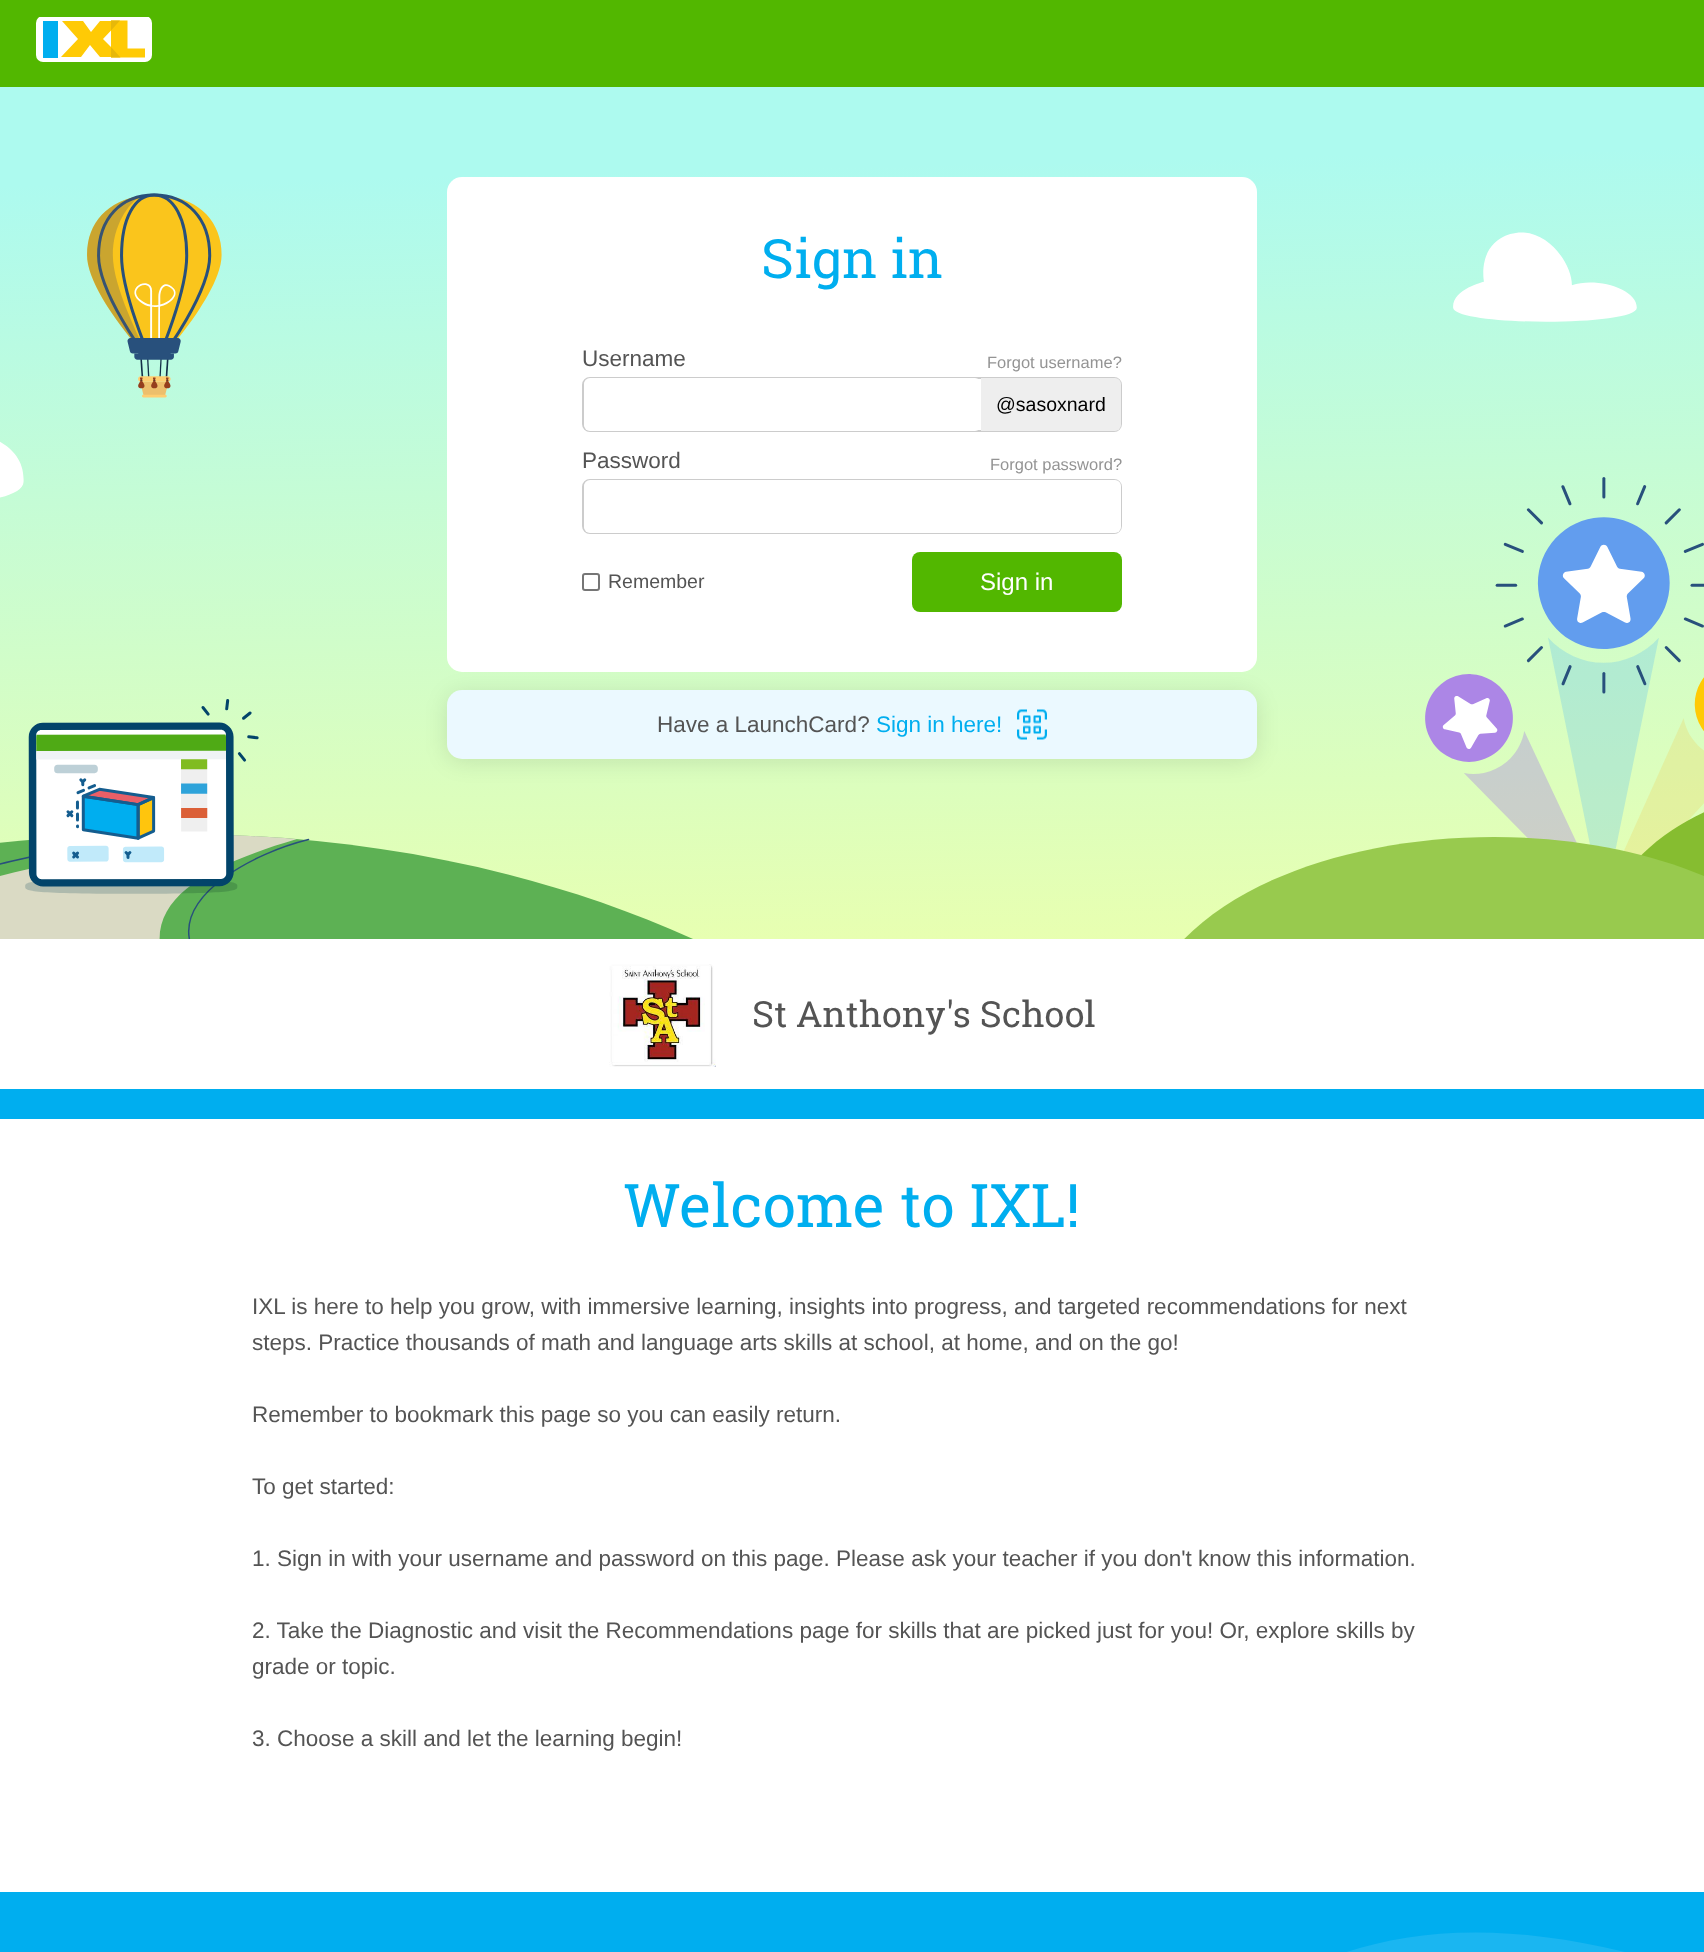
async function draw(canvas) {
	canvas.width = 1704;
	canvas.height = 1952;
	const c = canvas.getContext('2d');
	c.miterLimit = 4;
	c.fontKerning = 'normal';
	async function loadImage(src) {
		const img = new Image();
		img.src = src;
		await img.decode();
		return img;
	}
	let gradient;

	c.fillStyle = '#fff';
	c.fillRect(0, 0, 1704, 1952);
	c.fillStyle = '#52b700';
	c.fillRect(0, 0, 1704, 87);
	c.save();
	c.beginPath();
	c.rect(30, 17, 128, 46);
	c.clip();
	c.fillStyle = '#fff';
	c.beginPath();
	c.roundRect(36, 16, 116, 46, 7);
	c.fill();
	c.restore();
	c.fillStyle = '#ffca05';
	c.beginPath();
	c.moveTo(111, 57.5);
	c.lineTo(145, 57.5);
	c.lineTo(145, 48.5);
	c.lineTo(127.5, 48.5);
	c.lineTo(127.5, 20.5);
	c.lineTo(111, 20.5);
	c.closePath();
	c.fill('evenodd');
	c.beginPath();
	c.moveTo(61, 57);
	c.lineTo(81, 57);
	c.lineTo(90, 45);
	c.lineTo(100, 57);
	c.lineTo(121, 57);
	c.lineTo(103, 39);
	c.lineTo(120, 21);
	c.lineTo(100, 21);
	c.lineTo(91, 32);
	c.lineTo(83, 21);
	c.lineTo(62, 21);
	c.lineTo(78, 39);
	c.closePath();
	c.fill('evenodd');
	c.fillStyle = '#e7b809';
	c.beginPath();
	c.moveTo(111, 57.5);
	c.lineTo(120.5, 57.5);
	c.lineTo(111, 47);
	c.closePath();
	c.moveTo(120, 20.5);
	c.lineTo(111, 20.5);
	c.lineTo(111, 30.5);
	c.closePath();
	c.fill('evenodd');
	c.fillStyle = '#00aeef';
	c.fillRect(43, 21, 15, 37);
	gradient = c.createLinearGradient(842, 69, 862, 957);
	gradient.addColorStop(0.11, '#adfaef');
	gradient.addColorStop(0.99, '#e8ffb0');
	c.fillStyle = gradient;
	c.fillRect(0, 87, 1704, 852);
	c.drawImage(await loadImage('img1.png'), 0, 193, 1637, 305);
	c.drawImage(await loadImage('img3.png'), 0, 477, 1704, 462);
	c.fillStyle = '#0000001a';
	c.filter = 'blur(11px)';
	c.beginPath();
	c.roundRect(447, 693, 810, 69, 15);
	c.fill();
	c.filter = 'none';
	c.fillStyle = '#fff';
	c.beginPath();
	c.roundRect(447, 177, 810, 495, 15);
	c.fill();
	c.font = '54px Roboto Slab';
	c.fillStyle = '#00aeef';
	c.fillText('Sign in', 761, 278);
	c.font = '22.5px Liberation Sans';
	c.fillStyle = '#545454';
	c.fillText('Username', 582, 366);
	c.font = '16.5px Liberation Sans';
	c.fillStyle = '#949494';
	c.fillText('Forgot username?', 987, 368);
	c.beginPath();
	c.roundRect(583, 378, 538, 53, 7);
	c.strokeStyle = '#ccc';
	c.lineWidth = 2;
	c.stroke();
	c.fillStyle = '#fff';
	c.beginPath();
	c.roundRect(584, 378, 397, 53, 6);
	c.fill();
	c.fillStyle = '#eee';
	c.beginPath();
	c.roundRect(981, 378, 140, 53, [0, 6, 6, 0]);
	c.fill();
	c.font = '19.5px Liberation Sans';
	c.fillStyle = '#000';
	c.fillText('@sasoxnard', 996, 411);
	c.font = '22.5px Liberation Sans';
	c.fillStyle = '#545454';
	c.fillText('Password', 582, 468);
	c.font = '16.5px Liberation Sans';
	c.fillStyle = '#949494';
	c.fillText('Forgot password?', 990, 470);
	c.beginPath();
	c.roundRect(583, 480, 538, 53, 7);
	c.stroke();
	c.fillStyle = '#fff';
	c.beginPath();
	c.roundRect(584, 480, 537, 53, 6);
	c.fill();
	c.beginPath();
	c.roundRect(583, 574, 16, 16, 2);
	c.strokeStyle = '#767676';
	c.stroke();
	c.font = '19.5px Liberation Sans';
	c.fillStyle = '#545454';
	c.fillText('Remember', 608, 588);
	c.fillStyle = '#52b700';
	c.beginPath();
	c.roundRect(912, 552, 210, 60, 8);
	c.fill();
	c.font = '24px Liberation Sans';
	c.fillStyle = '#fff';
	c.fillText('Sign in', 980, 590);
	c.fillStyle = '#ebf9ff';
	c.beginPath();
	c.roundRect(447, 690, 810, 69, 15);
	c.fill();
	c.font = '22.5px Liberation Sans';
	c.fillStyle = '#545454';
	c.fillText('Have a LaunchCard?', 657, 732);
	c.fillStyle = '#00aeef';
	c.fillText('Sign in here!', 876, 732);
	c.drawImage(await loadImage('img2.png'), 1017, 709, 30, 31);
	c.drawImage(await loadImage('img4.png'), 609, 964, 107, 103);
	c.font = '36px Roboto Slab';
	c.fillStyle = '#545454';
	c.fillText('St Anthony\'s School', 752, 1027);
	c.fillStyle = '#00aeef';
	c.fillRect(0, 1089, 1704, 30);
	c.font = '60px Roboto Slab';
	c.fillText('Welcome to IXL!', 624, 1227);
	c.font = '22.5px Liberation Sans';
	c.fillStyle = '#545454';
	for (const [text, x, y] of [
		['IXL is here to help you grow, with immersive learning, insights into progress, and targeted recommendations for next', 252, 1314],
		['steps. Practice thousands of math and language arts skills at school, at home, and on the go!', 252, 1350],
		['Remember to bookmark this page so you can easily return.', 252, 1422],
		['To get started:', 252, 1494],
		['1. Sign in with your username and password on this page. Please ask your teacher if you don\'t know this information.', 252, 1566],
		['2. Take the Diagnostic and visit the Recommendations page for skills that are picked just for you! Or, explore skills by', 252, 1638],
		['grade or topic.', 252, 1674],
		['3. Choose a skill and let the learning begin!', 252, 1746],
	]) {
		c.fillText(text, x, y);
	}
	c.fillStyle = '#00aeef';
	c.fillRect(0, 1892, 1704, 60);
	c.fillStyle = '#1ab6f1';
	c.beginPath();
	c.moveTo(-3, 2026);
	c.bezierCurveTo(306, 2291, 411, 1792, 800, 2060);
	c.bezierCurveTo(1190, 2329, 1126, 1781, 1704, 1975);
	c.lineTo(1704, 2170);
	c.lineTo(-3, 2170);
	c.closePath();
	c.fill();
}

draw(document.querySelector('canvas'));
